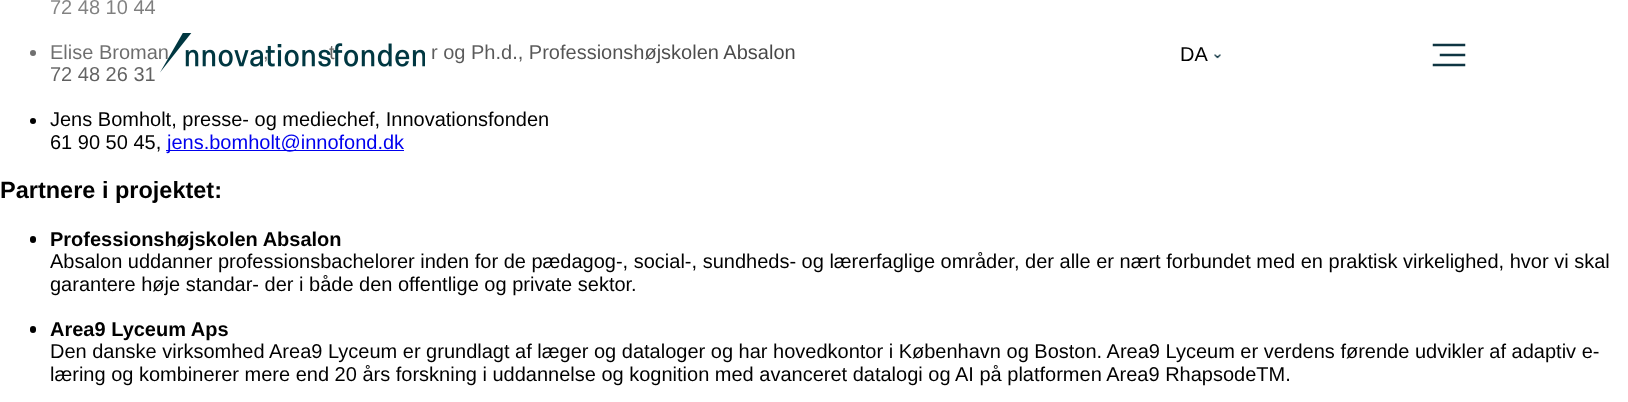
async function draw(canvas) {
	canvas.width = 1628;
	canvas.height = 402;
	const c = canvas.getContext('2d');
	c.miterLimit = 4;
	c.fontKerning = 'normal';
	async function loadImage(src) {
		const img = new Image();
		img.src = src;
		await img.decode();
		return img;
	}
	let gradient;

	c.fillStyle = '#fff';
	c.fillRect(0, 0, 1628, 402);
	c.font = '20px Liberation Sans';
	c.fillStyle = '#000';
	c.fillText('72 48 10 44', 50, 14);
	c.beginPath();
	c.arc(33, 53, 3, 0, 2 * Math.PI);
	c.fill();
	for (const [text, x, y] of [
		['Elise Broman', 50, 59],
		['t', 329, 59],
		['r og Ph.d., Professionshøjskolen Absalon', 431, 59],
		[',', 263, 59],
		['72 48 26 31', 50, 81],
	]) {
		c.fillText(text, x, y);
	}
	c.beginPath();
	c.arc(33, 121, 3, 0, 2 * Math.PI);
	c.fill();
	c.fillText('Jens Bomholt, presse- og mediechef, Innovationsfonden', 50, 126);
	c.fillText('61 90 50 45,', 50, 149);
	c.fillStyle = '#00e';
	c.fillRect(166, 150, 238, 1);
	c.fillText('jens.bomholt@innofond.dk', 167, 149);
	c.font = 'bold 23.5px Liberation Sans';
	c.fillStyle = '#000';
	c.fillText('Partnere i projektet:', 0, 198);
	c.beginPath();
	c.roundRect(30, 236, 6, 7, 3);
	c.fill();
	c.font = 'bold 20px Liberation Sans';
	c.fillText('Professionshøjskolen Absalon', 50, 246);
	c.font = '20px Liberation Sans';
	c.fillText('Absalon uddanner professionsbachelorer inden for de pædagog-, social-, sundheds- og lærerfaglige områder, der alle er nært forbundet med en praktisk virkelighed, hvor vi skal', 50, 268);
	c.fillText('garantere høje standar- der i både den offentlige og private sektor.', 50, 291);
	c.beginPath();
	c.roundRect(30, 326, 6, 7, 3);
	c.fill();
	c.font = 'bold 20px Liberation Sans';
	c.fillText('Area9 Lyceum Aps', 50, 336);
	c.font = '20px Liberation Sans';
	c.fillText('Den danske virksomhed Area9 Lyceum er grundlagt af læger og dataloger og har hovedkontor i København og Boston. Area9 Lyceum er verdens førende udvikler af adaptiv e-', 50, 358);
	c.fillText('læring og kombinerer mere end 20 års forskning i uddannelse og kognition med avanceret datalogi og AI på platformen Area9 RhapsodeTM.', 50, 381);
	gradient = c.createRadialGradient(-44, -19.25, 0, -44, -19.25, 1767);
	gradient.addColorStop(0, '#ffffff8f');
	gradient.addColorStop(1, '#ffffff00');
	c.fillStyle = gradient;
	c.beginPath();
	c.rect(30, 0, 765, 82);
	c.save();
	c.clip();
	c.scale(1, 257 / 1767);
	c.fillRect(0, 0, 1628, 2764);
	c.restore();
	c.drawImage(await loadImage('img1.png'), 160, 33, 265, 40);
	c.fillStyle = '#000';
	c.fillText('DA', 1180, 61);
	c.drawImage(await loadImage('img2.png'), 1214, 54, 7, 5);
	c.beginPath();
	c.moveTo(1434, 65);
	c.lineTo(1464, 65);
	c.moveTo(1441, 55);
	c.lineTo(1464, 55);
	c.moveTo(1434, 45);
	c.lineTo(1464, 45);
	c.strokeStyle = '#0f3542';
	c.lineWidth = 2.5;
	c.lineCap = 'square';
	c.lineJoin = 'round';
	c.stroke();
}

draw(document.querySelector('canvas'));
